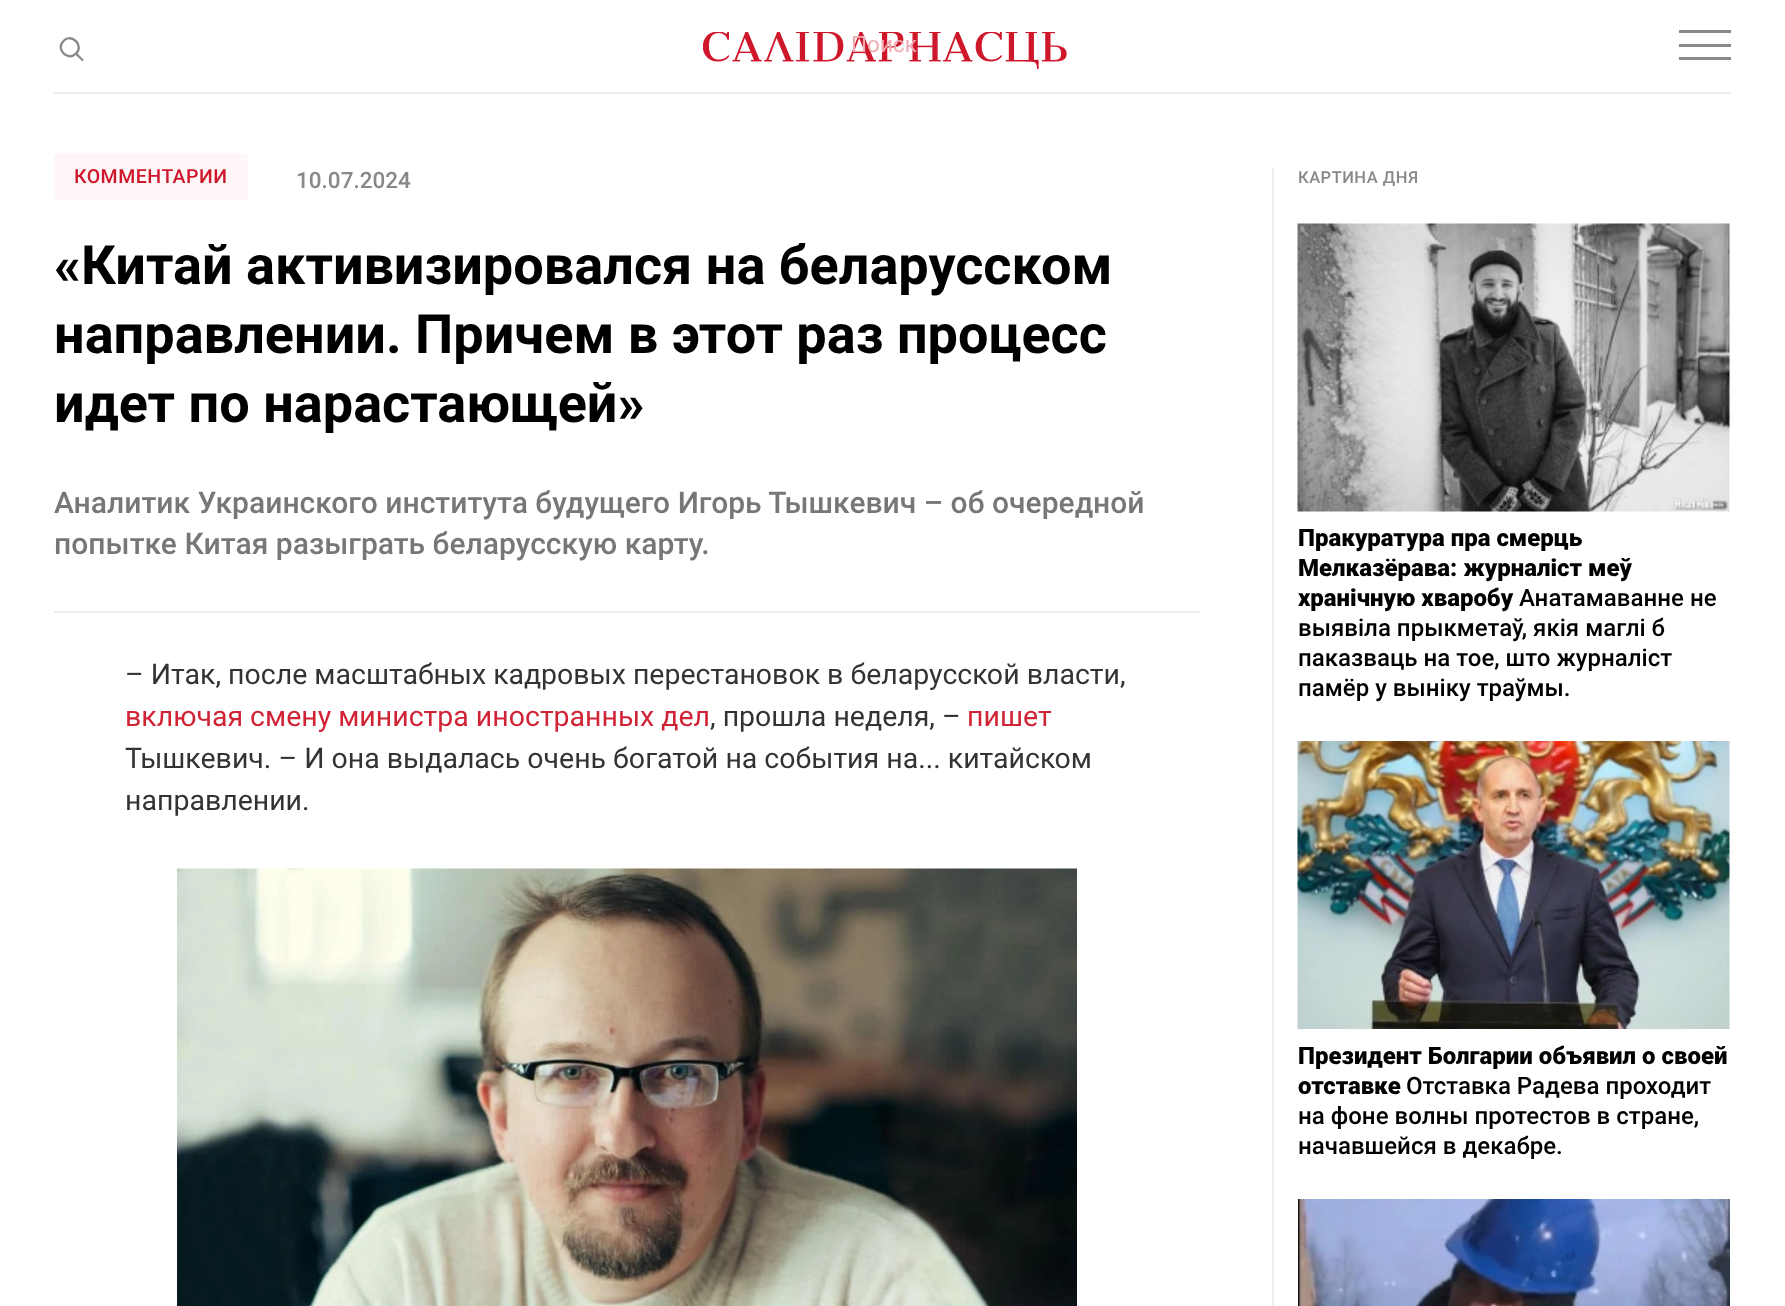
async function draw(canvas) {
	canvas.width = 1785;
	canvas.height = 1306;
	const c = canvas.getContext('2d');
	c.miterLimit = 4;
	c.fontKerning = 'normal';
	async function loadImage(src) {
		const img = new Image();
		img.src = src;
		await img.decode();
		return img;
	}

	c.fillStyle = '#fff';
	c.fillRect(0, 0, 1785, 1306);
	c.drawImage(await loadImage('img1.png'), 703, 32, 364, 37);
	for (const [x, y, w, h, color] of [
		[1679, 44, 52, 3, '#888'],
		[1679, 30, 52, 3, '#888'],
		[1679, 57, 52, 3, '#888'],
	]) {
		c.fillStyle = color;
		c.fillRect(x, y, w, h);
	}
	c.beginPath();
	c.moveTo(63.5, 41);
	c.bezierCurveTo(71.5, 32.5, 84.5, 45.5, 76, 53.5);
	c.bezierCurveTo(68, 62, 55, 49, 63.5, 41);
	c.closePath();
	c.strokeStyle = '#888';
	c.lineWidth = 2.3;
	c.stroke();
	c.beginPath();
	c.moveTo(75.5, 53);
	c.lineTo(83, 60.5);
	c.lineWidth = 2.2;
	c.stroke();
	c.font = '22.5px Roboto';
	c.fillStyle = '#eeacb3';
	c.fillText('Поиск', 851, 52);
	c.fillStyle = '#ededed';
	c.fillRect(54, 92, 1677, 2);
	c.fillRect(54, 611, 1146, 2);
	c.fillStyle = '#fff6f7';
	c.beginPath();
	c.roundRect(54, 153, 194, 47, 5);
	c.fill();
	c.letterSpacing = '0.5px';
	c.font = '500 19.5px Roboto';
	c.fillStyle = '#cf172b';
	c.fillText('КОММЕНТАРИИ', 74, 183);
	c.letterSpacing = '0px';
	c.font = '500 22.5px Roboto';
	c.fillStyle = '#888';
	c.fillText('10.07.2024', 296, 188);
	c.font = 'bold 54px Roboto';
	c.fillStyle = '#000';
	for (const [text, x, y] of [
		['«Китай активизировался на беларусском', 54, 284],
		['направлении. Причем в этот раз процесс', 54, 353],
		['идет по нарастающей»', 54, 422],
	]) {
		c.fillText(text, x, y);
	}
	c.font = '500 30px Roboto';
	c.fillStyle = '#777';
	c.fillText('Аналитик Украинского института будущего Игорь Тышкевич – об очередной', 54, 513);
	c.fillText('попытке Китая разыграть беларусскую карту.', 54, 554);
	c.font = '28.5px Roboto';
	c.fillStyle = '#333';
	c.fillText('– Итак, после масштабных кадровых перестановок в беларусской власти,', 125, 684);
	c.fillStyle = '#d12336';
	c.fillText('включая смену министра иностранных дел', 125, 726);
	c.fillStyle = '#333';
	c.fillText(', прошла неделя, –', 710, 726);
	c.fillStyle = '#d12336';
	c.fillText('пишет', 967, 726);
	c.fillStyle = '#333';
	c.fillText('Тышкевич. – И она выдалась очень богатой на события на... китайском', 125, 768);
	c.fillText('направлении.', 125, 810);
	c.drawImage(await loadImage('img2.png'), 177, 868, 900, 438);
	c.fillStyle = '#ededed';
	c.fillRect(1272, 168, 2, 1138);
	c.letterSpacing = '0.5px';
	c.font = '500 16.5px Roboto';
	c.fillStyle = '#888';
	c.fillText('КАРТИНА ДНЯ', 1298, 183);
	c.drawImage(await loadImage('img3.png'), 1297, 223, 433, 289);
	c.letterSpacing = '0px';
	c.font = '900 24px Roboto';
	c.fillStyle = '#000';
	for (const [text, x, y] of [
		['Пракуратура пра смерць', 1298, 546],
		['Мелказёрава: журналіст меў', 1298, 576],
		['хранічную хваробу', 1298, 606],
	]) {
		c.fillText(text, x, y);
	}
	c.font = '500 24px Roboto';
	for (const [text, x, y] of [
		['Анатамаванне не', 1519, 606],
		['выявіла прыкметаў, якія маглі б', 1298, 636],
		['паказваць на тое, што журналіст', 1298, 666],
		['памёр у выніку траўмы.', 1298, 696],
	]) {
		c.fillText(text, x, y);
	}
	c.drawImage(await loadImage('img4.png'), 1297, 741, 433, 288);
	c.font = '900 24px Roboto';
	c.fillText('Президент Болгарии объявил о своей', 1298, 1064);
	c.fillText('отставке', 1298, 1094);
	c.font = '500 24px Roboto';
	for (const [text, x, y] of [
		['Отставка Радева проходит', 1406, 1094],
		['на фоне волны протестов в стране,', 1298, 1124],
		['начавшейся в декабре.', 1298, 1154],
	]) {
		c.fillText(text, x, y);
	}
	c.drawImage(await loadImage('img5.png'), 1298, 1199, 432, 107);
}

draw(document.querySelector('canvas'));
